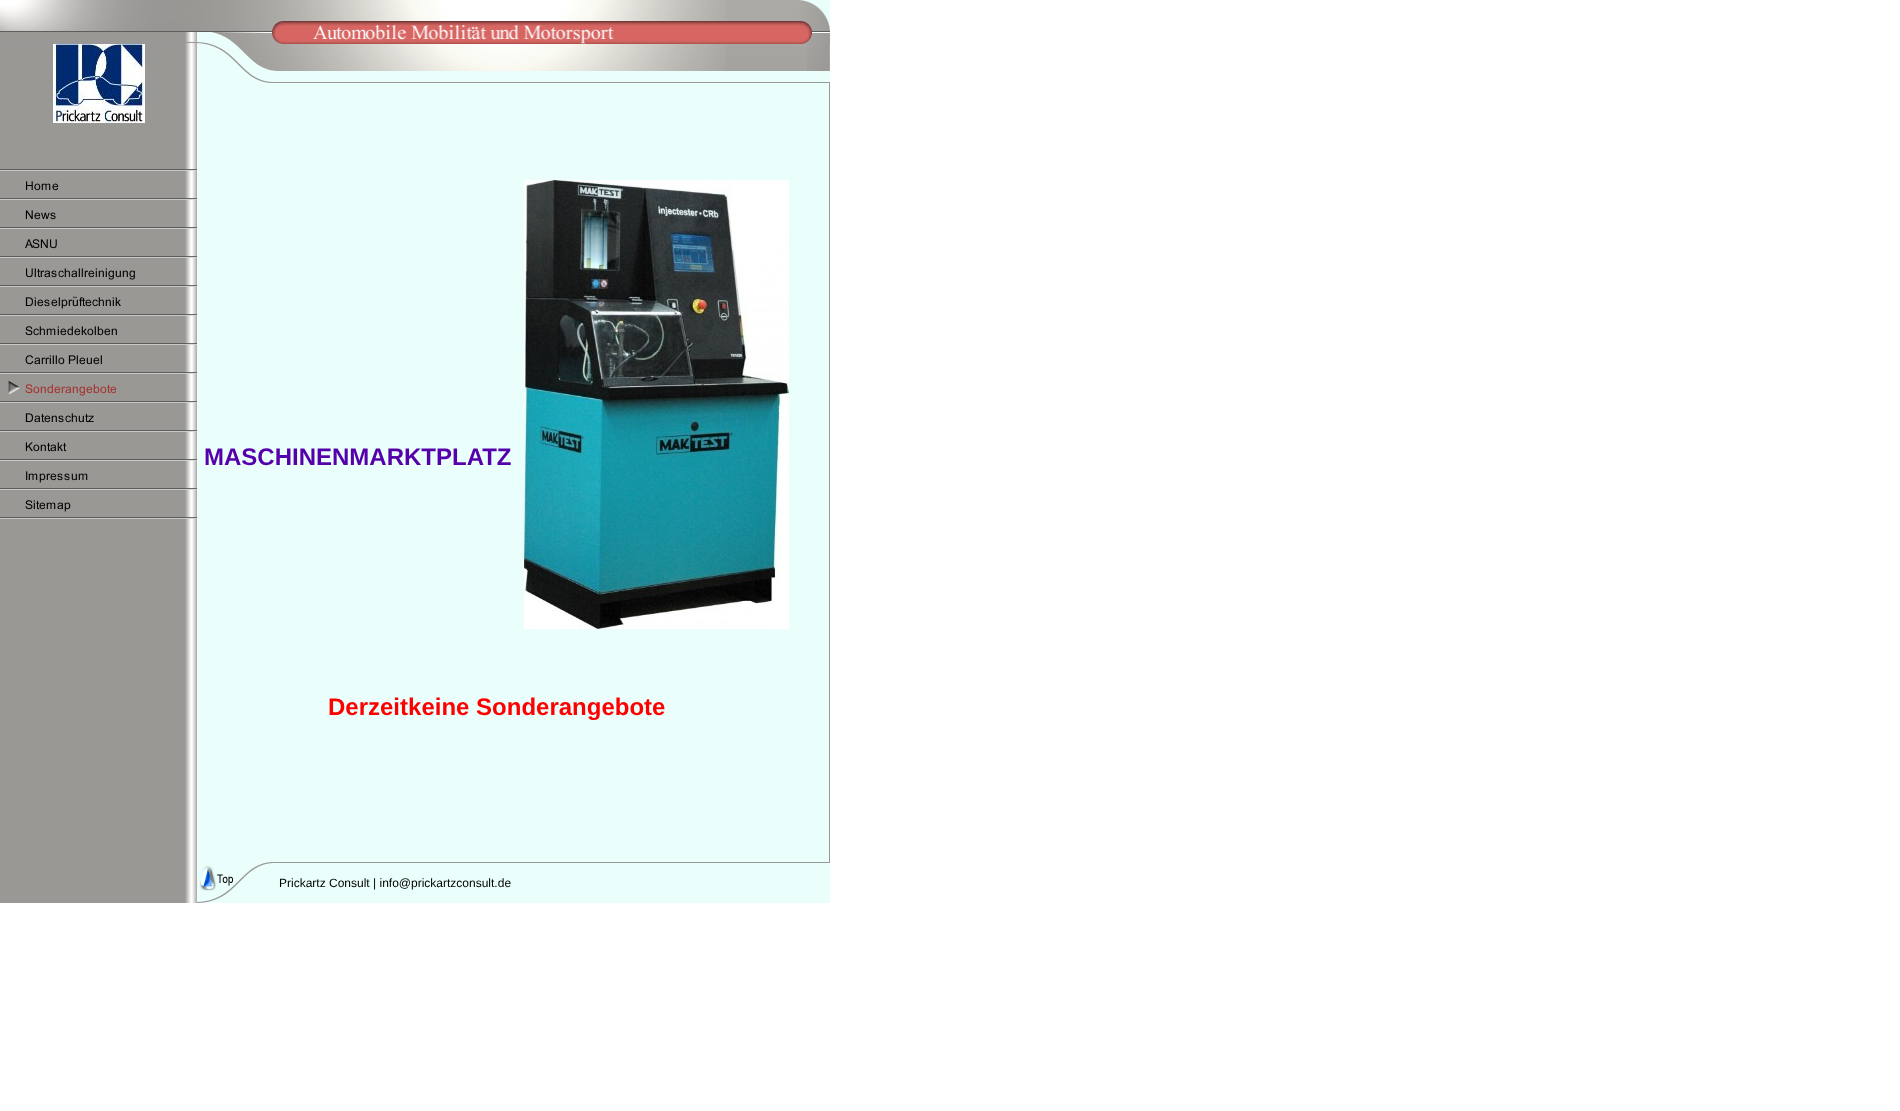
async function draw(canvas) {
	canvas.width = 1900;
	canvas.height = 1111;
	const c = canvas.getContext('2d');
	c.miterLimit = 4;
	c.fontKerning = 'normal';
	async function loadImage(src) {
		const img = new Image();
		img.src = src;
		await img.decode();
		return img;
	}

	c.fillStyle = '#fff';
	c.fillRect(0, 0, 1900, 1111);
	c.fillStyle = '#eafffb';
	c.fillRect(197, 83, 633, 820);
	c.drawImage(await loadImage('img1.png'), 0, 0, 197, 44);
	c.drawImage(await loadImage('img2.png'), 0, 44, 197, 125);
	c.drawImage(await loadImage('img3.png'), 53, 44, 92, 79);
	c.drawImage(await loadImage('img4.png'), 284, 0, 508, 44);
	c.drawImage(await loadImage('img5.png'), 197, 0, 87, 44);
	c.drawImage(await loadImage('img6.png'), 284, 0, 442, 21);
	c.drawImage(await loadImage('img7.png'), 313, 25, 301, 19);
	c.drawImage(await loadImage('img8.png'), 792, 0, 6, 44);
	c.drawImage(await loadImage('img9.png'), 798, 0, 32, 44);
	c.drawImage(await loadImage('img10.png'), 441, 44, 351, 39);
	c.drawImage(await loadImage('img11.png'), 197, 44, 244, 39);
	c.drawImage(await loadImage('img12.png'), 441, 44, 285, 27);
	c.drawImage(await loadImage('img13.png'), 792, 44, 38, 39);
	c.drawImage(await loadImage('img14.png'), 807, 44, 22, 27);
	c.fillStyle = '#9a9895';
	c.fillRect(829, 83, 1, 779);
	c.drawImage(await loadImage('img15.png'), 0, 171, 197, 691);
	c.drawImage(await loadImage('img16.png'), 0, 169, 197, 2);
	c.drawImage(await loadImage('img17.png'), 26, 181, 33, 10);
	c.drawImage(await loadImage('img16.png'), 0, 198, 197, 2);
	c.drawImage(await loadImage('img18.png'), 25, 210, 31, 10);
	c.drawImage(await loadImage('img16.png'), 0, 227, 197, 2);
	c.drawImage(await loadImage('img19.png'), 25, 239, 32, 10);
	c.drawImage(await loadImage('img16.png'), 0, 256, 197, 2);
	c.drawImage(await loadImage('img20.png'), 26, 268, 109, 12);
	c.drawImage(await loadImage('img16.png'), 0, 285, 197, 2);
	c.drawImage(await loadImage('img21.png'), 25, 296, 96, 13);
	c.drawImage(await loadImage('img16.png'), 0, 314, 197, 2);
	c.drawImage(await loadImage('img22.png'), 25, 326, 92, 10);
	c.drawImage(await loadImage('img16.png'), 0, 343, 197, 2);
	c.drawImage(await loadImage('img23.png'), 25, 355, 77, 10);
	c.drawImage(await loadImage('img16.png'), 0, 372, 197, 2);
	c.drawImage(await loadImage('img24.png'), 8, 381, 109, 15);
	c.drawImage(await loadImage('img16.png'), 0, 401, 197, 2);
	c.drawImage(await loadImage('img25.png'), 25, 413, 69, 10);
	c.drawImage(await loadImage('img16.png'), 0, 430, 197, 2);
	c.drawImage(await loadImage('img26.png'), 25, 442, 42, 10);
	c.drawImage(await loadImage('img16.png'), 0, 459, 197, 2);
	c.drawImage(await loadImage('img27.png'), 26, 471, 62, 12);
	c.drawImage(await loadImage('img16.png'), 0, 488, 197, 2);
	c.drawImage(await loadImage('img28.png'), 25, 500, 46, 12);
	c.drawImage(await loadImage('img16.png'), 0, 517, 197, 2);
	c.font = 'bold 24px Liberation Sans';
	c.fillStyle = '#50a';
	c.fillText('MASCHINENMARKTPLATZ', 204, 465);
	c.drawImage(await loadImage('img29.png'), 524, 180, 265, 449);
	c.fillStyle = '#f00';
	c.fillText('Derzeitkeine Sonderangebote', 328, 715);
	c.drawImage(await loadImage('img30.png'), 0, 862, 197, 41);
	c.fillStyle = '#999';
	c.fillRect(272, 862, 7, 1);
	c.drawImage(await loadImage('img31.png'), 197, 862, 75, 41);
	c.fillStyle = '#9a9895';
	c.fillRect(279, 862, 551, 1);
	c.font = '12px Liberation Sans';
	c.fillStyle = '#000';
	c.fillText('Prickartz Consult | info@prickartzconsult.de', 279, 887);
}

draw(document.querySelector('canvas'));
